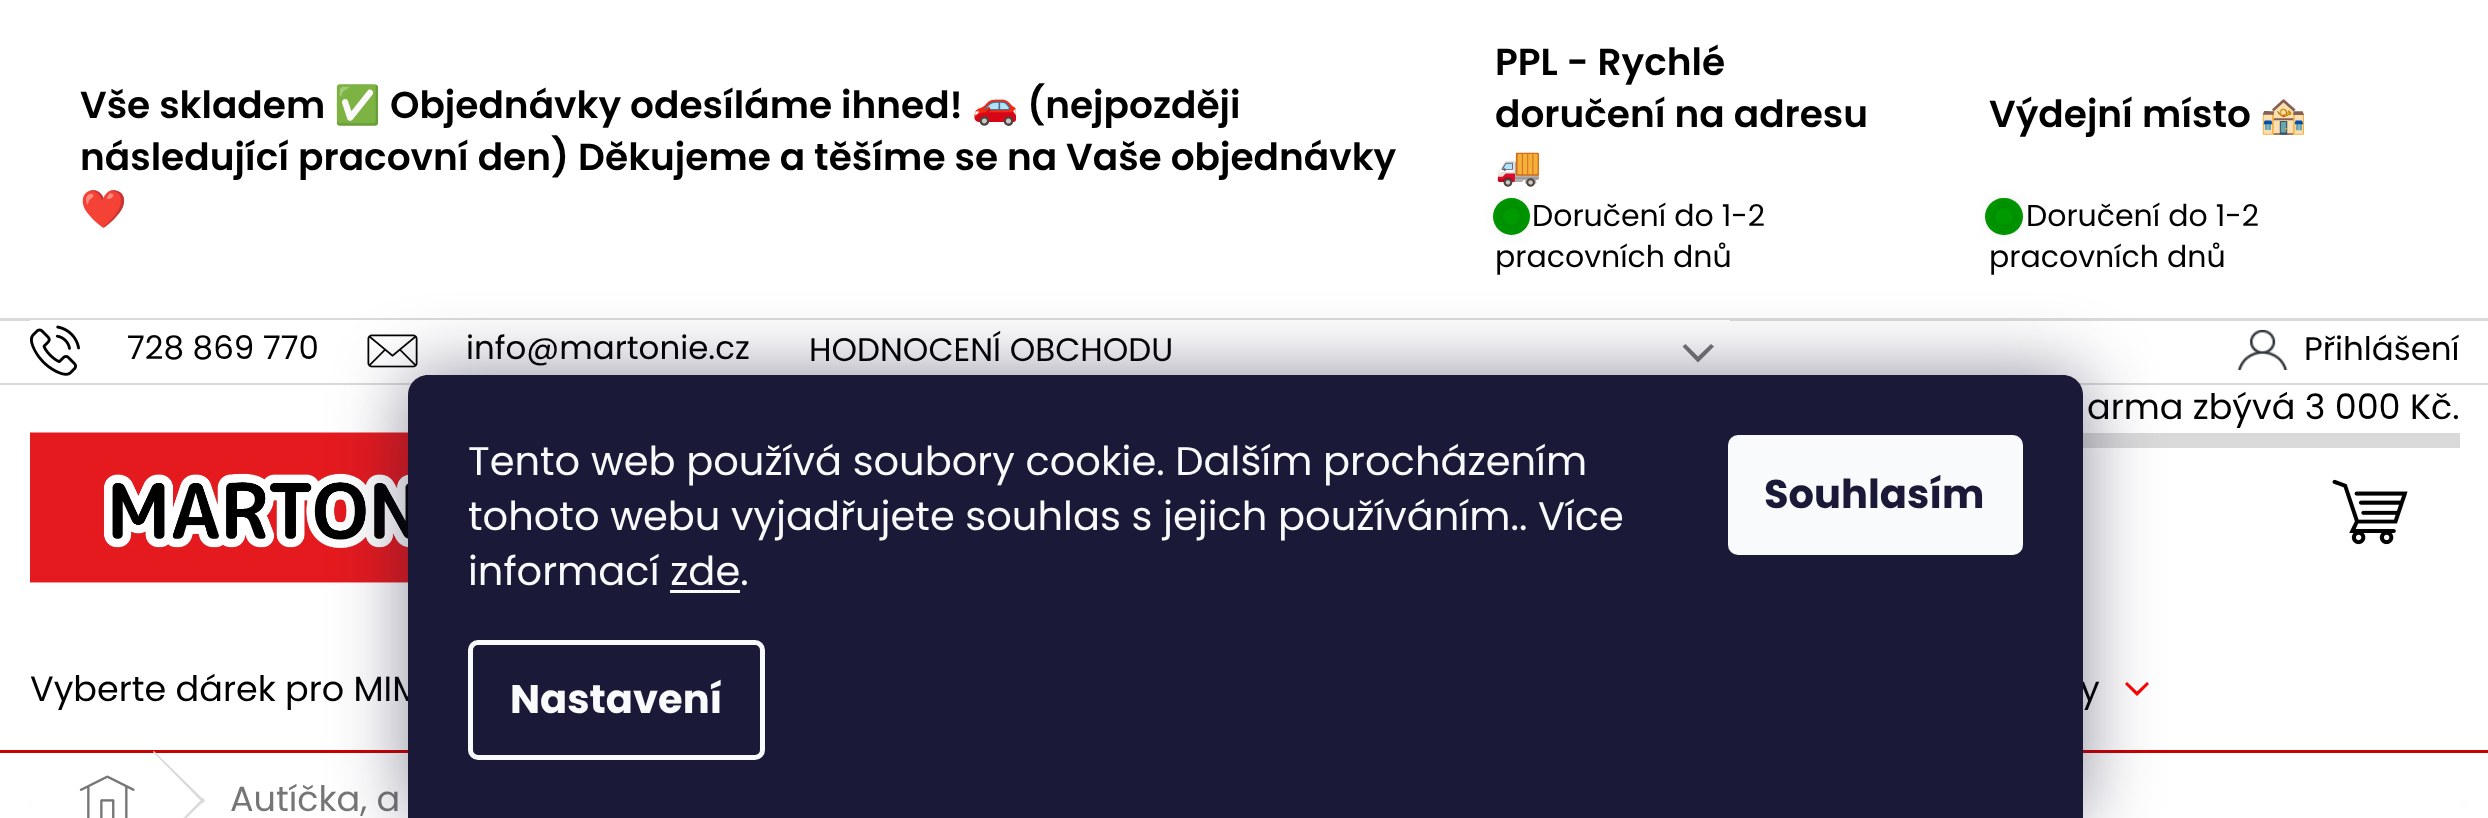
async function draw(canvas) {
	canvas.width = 2488;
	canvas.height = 818;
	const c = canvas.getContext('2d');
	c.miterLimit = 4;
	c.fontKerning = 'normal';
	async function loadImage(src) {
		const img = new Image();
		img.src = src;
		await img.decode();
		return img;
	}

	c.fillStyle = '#fff';
	c.fillRect(0, 0, 2488, 818);
	c.drawImage(await loadImage('img1.png'), 5, 753, 2483, 65);
	c.font = '600 37.5px Poppins';
	c.fillStyle = '#000';
	c.fillText('Vše skladem', 80, 118);
	c.font = 'bold 37.5px Noto Color Emoji';
	c.fillText('✅', 334, 118);
	c.font = '600 37.5px Poppins';
	c.fillText('Objednávky odesíláme ihned!', 390, 118);
	c.font = 'bold 37.5px Noto Color Emoji';
	c.fillText('🚗', 972, 118);
	c.font = '600 37.5px Poppins';
	c.fillText('(nejpozději', 1027, 118);
	c.fillText('následující pracovní den) Děkujeme a těšíme se na Vaše objednávky', 80, 170);
	c.font = 'bold 37.5px Noto Color Emoji';
	c.fillText('❤️', 80, 222);
	c.font = '600 37.5px Poppins';
	c.fillText('PPL - Rychlé', 1495, 75);
	c.fillText('doručení na adresu', 1495, 127);
	c.font = 'bold 37.5px Noto Color Emoji';
	c.fillText('🚚', 1495, 179);
	c.font = '600 37.5px Poppins';
	c.fillText('Výdejní místo', 1989, 127);
	c.font = 'bold 37.5px Noto Color Emoji';
	c.fillText('🏤', 2260, 127);
	c.fillStyle = '#009901';
	c.beginPath();
	c.arc(1511.5, 216.5, 18.5, 0, 2 * Math.PI);
	c.fill();
	c.fillStyle = '#0000004d';
	c.filter = 'blur(10px)';
	c.beginPath();
	c.roundRect(1503, 208, 17, 17, 8.5);
	c.fill();
	c.filter = 'none';
	c.fillStyle = '#009901';
	c.beginPath();
	c.arc(1511.5, 216.5, 8.5, 0, 2 * Math.PI);
	c.fill();
	c.font = '30px Poppins';
	c.fillStyle = '#000';
	c.fillText('Doručení do 1-2', 1532, 226);
	c.fillText('pracovních dnů', 1495, 267);
	c.fillStyle = '#009901';
	c.beginPath();
	c.roundRect(1985, 198, 38, 37, 18.5);
	c.fill();
	c.fillStyle = '#0000004d';
	c.filter = 'blur(10px)';
	c.beginPath();
	c.roundRect(1995, 208, 18, 17, 8.5);
	c.fill();
	c.filter = 'none';
	c.fillStyle = '#009901';
	c.beginPath();
	c.roundRect(1995, 208, 18, 17, 8.5);
	c.fill();
	c.fillStyle = '#000';
	c.fillText('Doručení do 1-2', 2026, 226);
	c.fillText('pracovních dnů', 1989, 267);
	for (const [x, y, w, h, color] of [
		[0, 318, 2488, 3, '#dadada'],
		[0, 383, 2488, 2, '#dadada'],
		[30, 320, 1700, 1, '#fff'],
	]) {
		c.fillStyle = color;
		c.fillRect(x, y, w, h);
	}
	c.drawImage(await loadImage('img2.png'), 30, 325, 50, 51);
	c.font = '32.5px Poppins';
	c.fillStyle = '#000';
	c.fillText('728 869 770', 127, 359);
	c.drawImage(await loadImage('img3.png'), 367, 334, 51, 34);
	c.fillText('info@martonie.cz', 466, 359);
	c.fillText('HODNOCENÍ OBCHODU', 809, 361);
	c.fillStyle = '#767676';
	c.beginPath();
	c.moveTo(1682.5, 346.5);
	c.lineTo(1685.5, 344);
	c.lineTo(1698, 356.5);
	c.lineTo(1711, 344);
	c.lineTo(1714, 346.5);
	c.lineTo(1698, 362.5);
	c.closePath();
	c.fill();
	c.drawImage(await loadImage('img4.png'), 2237, 330, 51, 40);
	c.fillStyle = '#000';
	c.fillText('Přihlášení', 2304, 360);
	c.fillStyle = '#cb0000';
	c.fillRect(0, 750, 2488, 3);
	c.font = '35px Poppins';
	c.fillStyle = '#000';
	c.fillText('arma zbývá 3 000 Kč.', 2087, 419);
	c.fillStyle = '#dadada';
	c.fillRect(2083, 433, 377, 15);
	c.drawImage(await loadImage('img5.png'), 30, 432, 378, 151);
	c.drawImage(await loadImage('img6.png'), 2332, 479, 76, 66);
	c.fillStyle = '#000';
	c.fillText('Vyberte dárek pro MIM', 30, 701);
	c.fillText('y', 2080, 701);
	c.fillStyle = '#fe0000';
	c.beginPath();
	c.moveTo(2125, 684);
	c.lineTo(2127, 682);
	c.lineTo(2137, 691.5);
	c.lineTo(2147, 682);
	c.lineTo(2149, 684);
	c.lineTo(2137, 696);
	c.closePath();
	c.fill();
	c.fillStyle = '#fff';
	c.fillRect(30, 753, 2430, 65);
	c.drawImage(await loadImage('img7.png'), 79, 775, 56, 43);
	c.fillStyle = '#dadada';
	c.beginPath();
	c.moveTo(153, 752);
	c.lineTo(154, 751);
	c.lineTo(205, 801);
	c.lineTo(203, 803);
	c.closePath();
	c.fill();
	c.beginPath();
	c.moveTo(203, 798);
	c.lineTo(205, 800);
	c.lineTo(154, 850);
	c.lineTo(153, 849);
	c.closePath();
	c.fill();
	c.fillStyle = '#767676';
	c.fillText('Autíčka, a', 230, 811);
	c.fillStyle = '#1b193980';
	c.filter = 'blur(37.5px)';
	c.beginPath();
	c.roundRect(408, 375, 1675, 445, 20);
	c.fill();
	c.filter = 'none';
	c.fillStyle = '#1a1937';
	c.beginPath();
	c.moveTo(428, 375);
	c.lineTo(2063, 375);
	c.bezierCurveTo(2074, 375, 2083, 384, 2083, 395);
	c.lineTo(2083, 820);
	c.lineTo(408, 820);
	c.lineTo(408, 395);
	c.bezierCurveTo(408, 384, 417, 375, 428, 375);
	c.closePath();
	c.fill();
	c.font = '40px Poppins';
	c.fillStyle = '#f8fafb';
	for (const [text, x, y] of [
		['Tento web používá soubory cookie. Dalším procházením', 468, 475],
		['tohoto webu vyjadřujete souhlas s jejich používáním.. Více', 468, 530],
		['informací zde.', 468, 585],
	]) {
		c.fillText(text, x, y);
	}
	c.fillRect(670, 590, 70, 3);
	c.beginPath();
	c.roundRect(470.5, 642.5, 292, 115, 7.5);
	c.strokeStyle = '#f8fafb';
	c.lineWidth = 5;
	c.stroke();
	c.font = 'bold 40px Poppins';
	c.fillText('Nastavení', 510, 713);
	c.beginPath();
	c.roundRect(1728, 435, 295, 120, 10);
	c.fill();
	c.fillStyle = '#1a1937';
	c.fillText('Souhlasím', 1764, 508);
}

draw(document.querySelector('canvas'));
